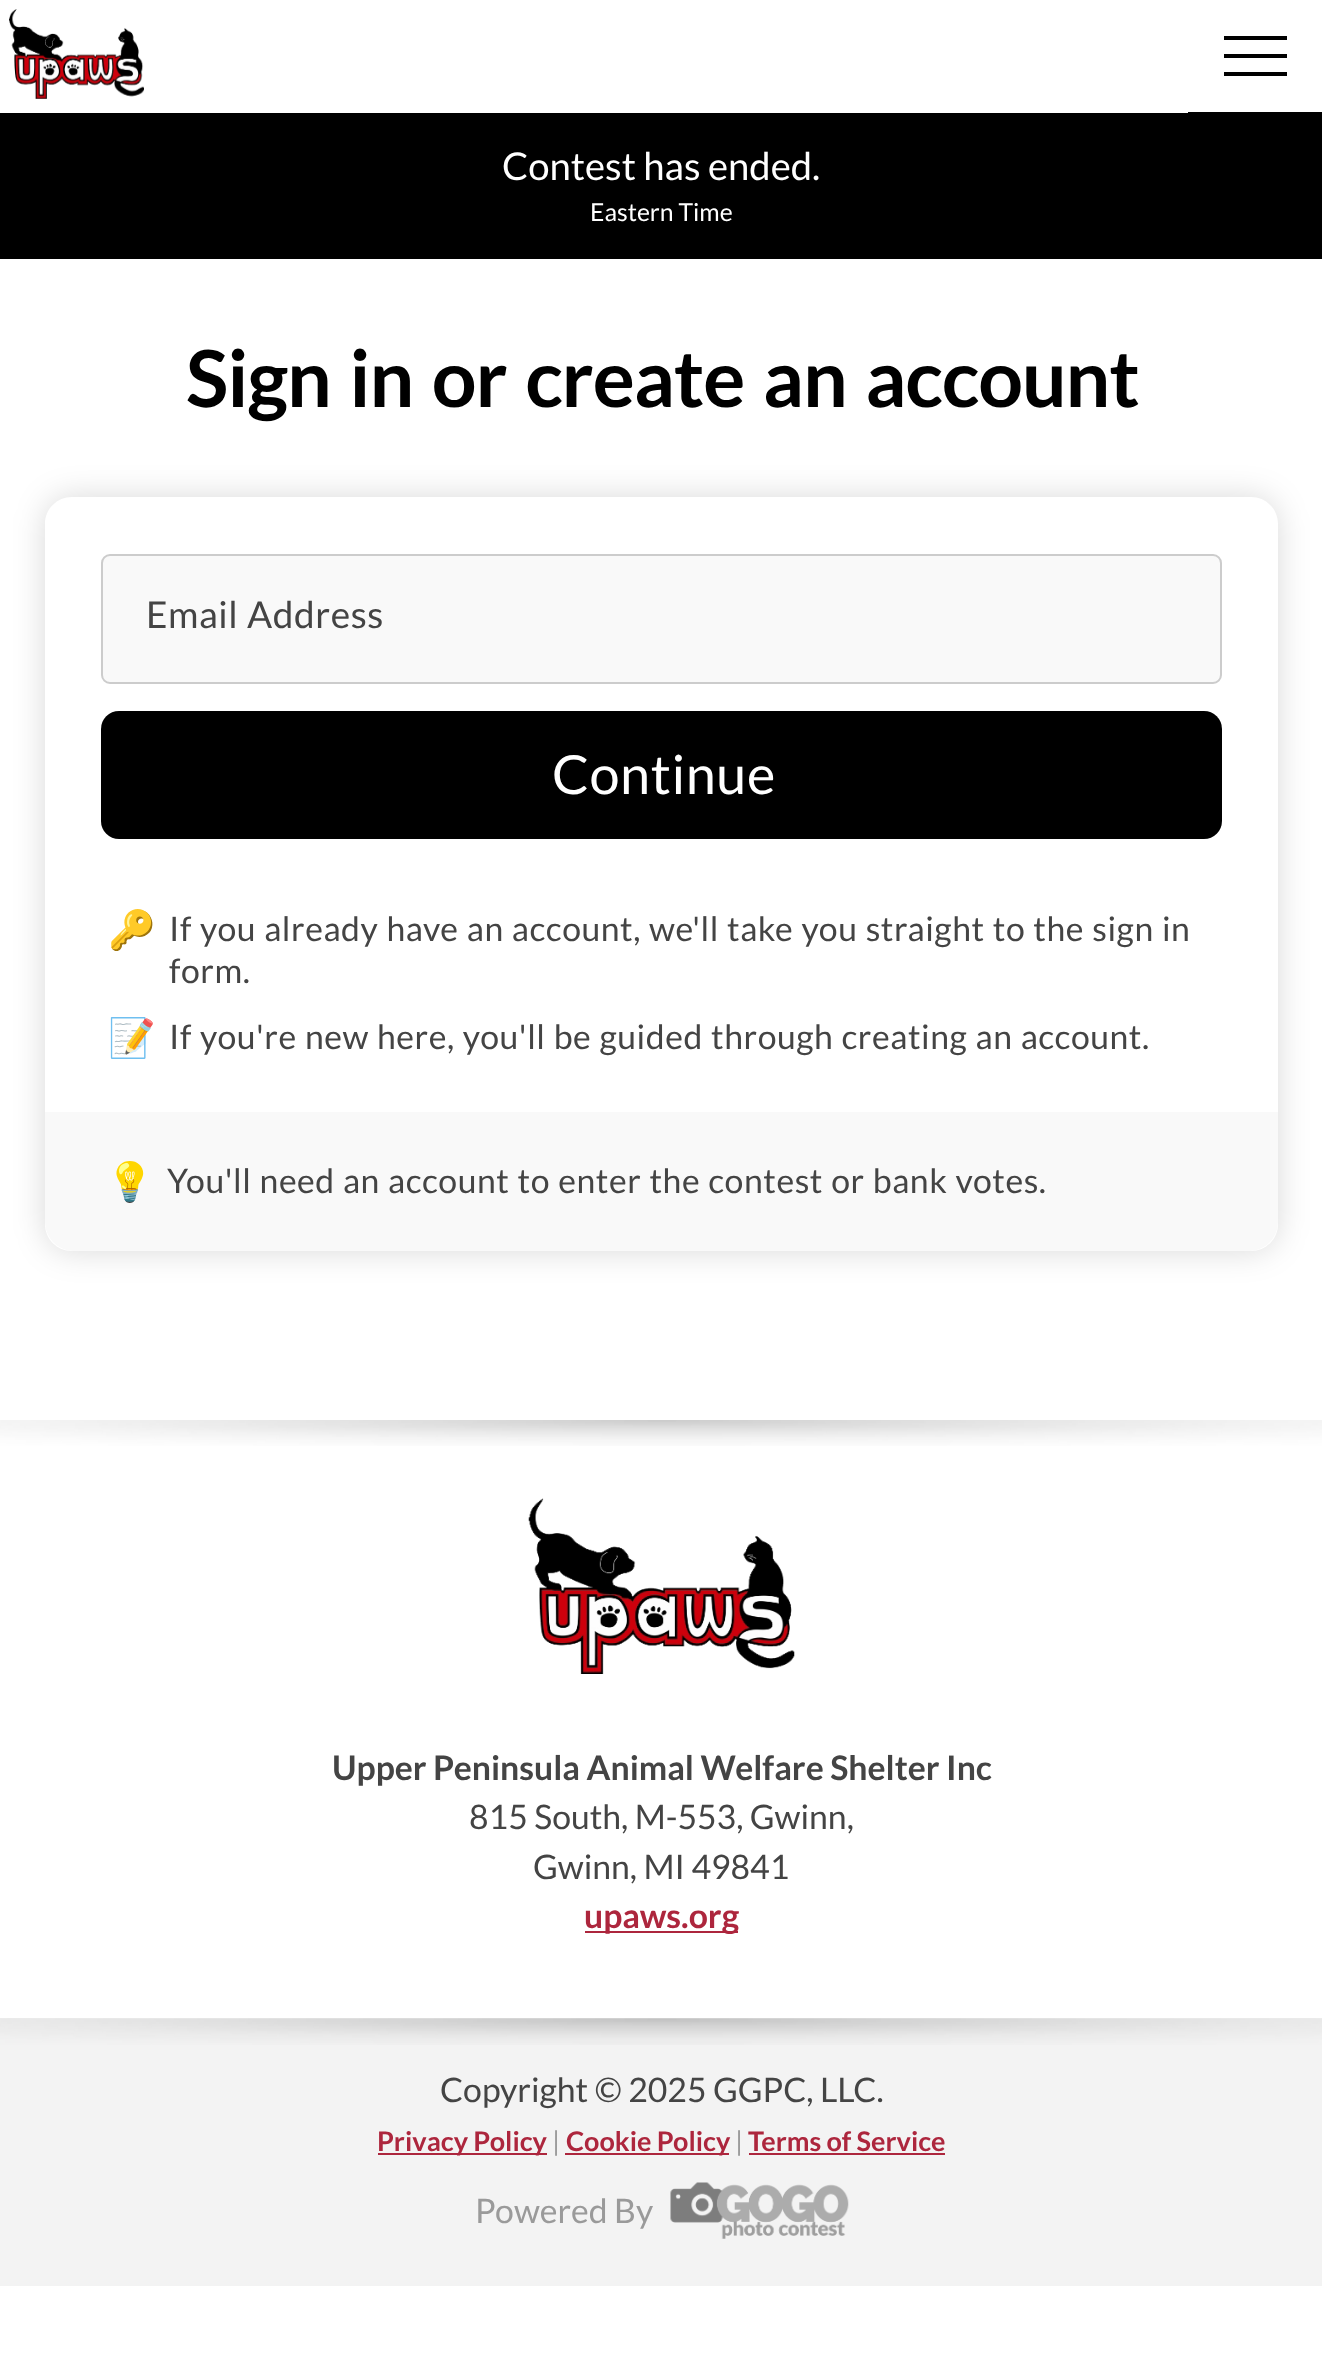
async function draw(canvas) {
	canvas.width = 1322;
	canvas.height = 2378;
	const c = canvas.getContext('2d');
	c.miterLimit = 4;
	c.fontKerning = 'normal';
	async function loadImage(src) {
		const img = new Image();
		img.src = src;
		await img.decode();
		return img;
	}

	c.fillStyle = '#fff';
	c.fillRect(0, 0, 1322, 2378);
	c.drawImage(await loadImage('img1.png'), 9, 9, 135, 90);
	c.fillStyle = '#000';
	c.fillRect(1188, 36, 134, 77);
	c.fillStyle = '#fff';
	c.beginPath();
	c.moveTo(1188, 0);
	c.lineTo(1188, 112);
	c.lineTo(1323, 112);
	c.lineTo(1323, 0);
	c.closePath();
	c.moveTo(1224, 54);
	c.lineTo(1287, 54);
	c.lineTo(1287, 58);
	c.lineTo(1224, 58);
	c.closePath();
	c.moveTo(1224, 76);
	c.lineTo(1224, 72);
	c.lineTo(1287, 72);
	c.lineTo(1287, 76);
	c.closePath();
	c.moveTo(1287, 40);
	c.lineTo(1224, 40);
	c.lineTo(1224, 36);
	c.lineTo(1287, 36);
	c.closePath();
	c.fill();
	c.fillStyle = '#000';
	c.fillRect(0, 113, 1322, 146);
	c.font = '38.25px Lato';
	c.fillStyle = '#fff';
	c.fillText('Contest has ended.', 502, 180);
	c.font = '24.75px Lato';
	c.fillText('Eastern Time', 590, 221);
	c.letterSpacing = '-1.1px';
	c.wordSpacing = '4.5px';
	c.font = 'bold 78.75px Lato';
	c.fillStyle = '#000';
	c.fillText('Sign in or create an account', 186, 407);
	c.save();
	c.beginPath();
	c.moveTo(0, 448);
	c.lineTo(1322, 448);
	c.lineTo(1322, 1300);
	c.lineTo(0, 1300);
	c.closePath();
	c.moveTo(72, 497);
	c.lineTo(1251, 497);
	c.bezierCurveTo(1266, 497, 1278, 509, 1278, 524);
	c.lineTo(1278, 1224);
	c.bezierCurveTo(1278, 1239, 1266, 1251, 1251, 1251);
	c.lineTo(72, 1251);
	c.bezierCurveTo(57, 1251, 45, 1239, 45, 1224);
	c.lineTo(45, 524);
	c.bezierCurveTo(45, 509, 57, 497, 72, 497);
	c.closePath();
	c.clip('evenodd');
	c.fillStyle = '#00000026';
	c.filter = 'blur(16px)';
	c.beginPath();
	c.roundRect(45, 497, 1233, 754, 27);
	c.fill();
	c.filter = 'none';
	c.restore();
	c.fillStyle = '#f9f9f9';
	c.beginPath();
	c.roundRect(102, 555, 1119, 128, 8);
	c.fill();
	c.strokeStyle = '#ccc';
	c.lineWidth = 2;
	c.stroke();
	c.letterSpacing = '0.55px';
	c.wordSpacing = '1.1px';
	c.font = '37px Lato';
	c.fillStyle = '#444';
	c.fillText('Email Address', 146, 628);
	c.fillStyle = '#000';
	c.beginPath();
	c.roundRect(101, 711, 1121, 128, 18);
	c.fill();
	c.wordSpacing = '0px';
	c.font = '54px Lato';
	c.fillStyle = '#fff';
	c.fillText('Continue', 552, 794);
	c.font = '38.25px Noto Color Emoji';
	c.fillStyle = '#444';
	c.fillText('🔑', 108, 943);
	c.wordSpacing = '1.1px';
	c.font = '33.75px Lato';
	c.fillText('If you already have an account, we\'ll take you straight to the sign in', 169, 941);
	c.wordSpacing = '0px';
	c.fillText('form.', 169, 983);
	c.font = '38.25px Noto Color Emoji';
	c.fillText('📝', 108, 1051);
	c.wordSpacing = '1.1px';
	c.font = '33.75px Lato';
	c.fillText('If you\'re new here, you\'ll be guided through creating an account.', 169, 1049);
	c.fillStyle = '#f9f9f9';
	c.beginPath();
	c.roundRect(45, 1112, 1233, 139, [0, 0, 29, 29]);
	c.fill();
	c.wordSpacing = '0px';
	c.font = '38.25px Noto Color Emoji';
	c.fillStyle = '#444';
	c.fillText('💡', 106, 1195);
	c.wordSpacing = '1.1px';
	c.font = '33.75px Lato';
	c.fillText('You\'ll need an account to enter the contest or bank votes.', 167, 1193);
	c.drawImage(await loadImage('img2.png'), 0, 1420, 1322, 26);
	c.drawImage(await loadImage('img3.png'), 528, 1498, 267, 176);
	c.letterSpacing = '0px';
	c.wordSpacing = '0px';
	c.font = 'bold 33.75px Lato';
	c.fillText('Upper Peninsula Animal Welfare Shelter Inc', 332, 1780);
	c.font = '33.75px Lato';
	c.fillText('815 South, M-553, Gwinn,', 469, 1829);
	c.fillText('Gwinn, MI 49841', 533, 1879);
	c.fillStyle = '#ad263d';
	c.fillRect(585, 1931, 153, 2);
	c.font = 'bold 33.75px Lato';
	c.fillText('upaws.org', 584, 1928);
	c.fillStyle = '#f3f3f3';
	c.fillRect(0, 2018, 1322, 268);
	c.drawImage(await loadImage('img4.png'), 0, 2018, 1322, 27);
	c.font = '33.75px Lato';
	c.fillStyle = '#444';
	c.fillText('Copyright © 2025 GGPC, LLC.', 440, 2102);
	c.fillStyle = '#ad263d';
	c.fillRect(378, 2153, 169, 2);
	c.font = 'bold 27px Lato';
	c.fillText('Privacy Policy', 377, 2151);
	c.font = '27px Lato';
	c.fillStyle = '#9a9a9a';
	c.fillText('|', 552, 2151);
	c.fillStyle = '#ad263d';
	c.fillRect(565, 2153, 164, 2);
	c.font = 'bold 27px Lato';
	c.fillText('Cookie Policy', 566, 2151);
	c.font = '27px Lato';
	c.fillStyle = '#9a9a9a';
	c.fillText('|', 735, 2151);
	c.font = 'bold 27px Lato';
	c.fillStyle = '#ad263d';
	c.fillText('Terms of Service', 748, 2151);
	c.fillRect(749, 2153, 196, 2);
	c.font = '33.75px Lato';
	c.fillStyle = '#9a9a9a';
	c.fillText('Powered By', 475, 2223);
	c.drawImage(await loadImage('img5.png'), 670, 2182, 179, 57);
}

draw(document.querySelector('canvas'));
